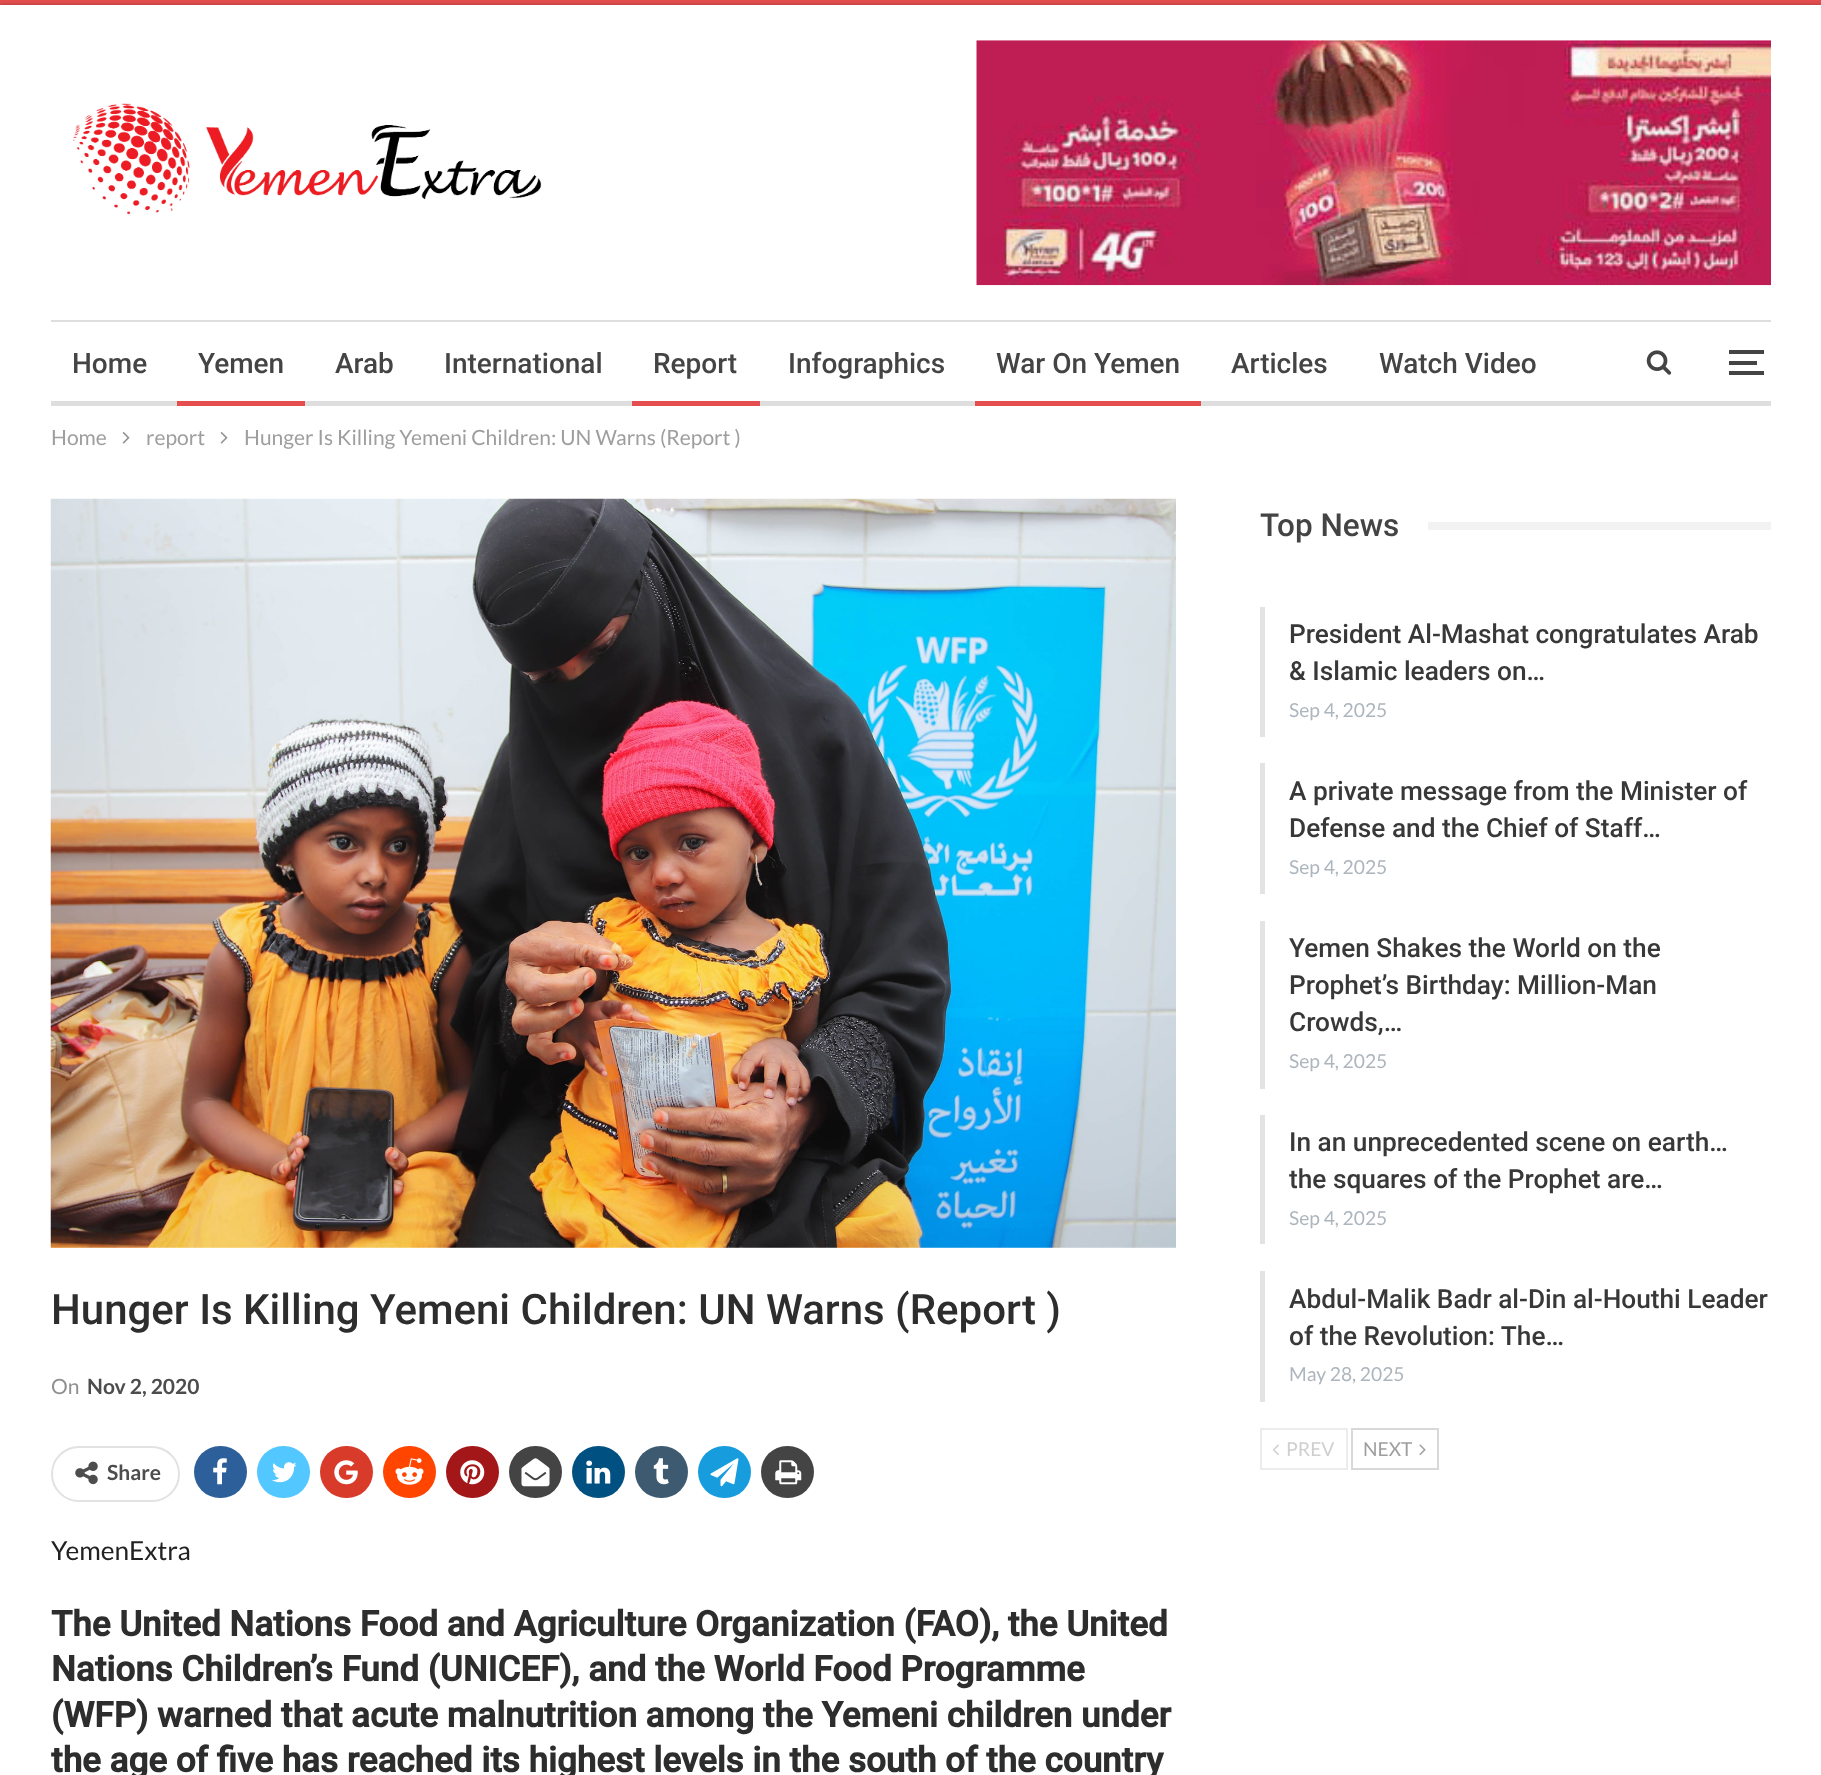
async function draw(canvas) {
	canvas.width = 1821;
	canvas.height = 1775;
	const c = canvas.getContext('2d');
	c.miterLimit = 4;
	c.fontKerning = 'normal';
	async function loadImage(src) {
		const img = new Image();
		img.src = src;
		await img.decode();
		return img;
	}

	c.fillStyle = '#e44e4f';
	c.fillRect(0, 0, 1821, 1775);
	c.fillStyle = '#00000045';
	c.filter = 'blur(2px)';
	c.beginPath();
	c.rect(0, 5, 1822, 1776);
	c.fill();
	c.filter = 'none';
	c.fillStyle = '#fff';
	c.fillRect(0, 5, 1821, 1770);
	c.drawImage(await loadImage('img1.png'), 72, 103, 470, 112);
	c.drawImage(await loadImage('img2.png'), 976, 40, 795, 246);
	c.fillStyle = '#dedede';
	c.fillRect(51, 320, 1720, 2);
	c.fillRect(51, 401, 1720, 5);
	c.font = '500 28px Roboto';
	c.fillStyle = '#444';
	c.fillText('Home', 72, 373);
	c.fillText('Yemen', 198, 373);
	c.fillStyle = '#e44e4f';
	c.fillRect(177, 401, 128, 5);
	c.fillStyle = '#444';
	for (const [text, x, y] of [
		['Arab', 335, 373],
		['International', 444, 373],
		['Report', 653, 373],
	]) {
		c.fillText(text, x, y);
	}
	c.fillStyle = '#e44e4f';
	c.fillRect(632, 401, 128, 5);
	c.fillStyle = '#444';
	c.fillText('Infographics', 788, 373);
	c.fillText('War On Yemen', 996, 373);
	c.fillStyle = '#e44e4f';
	c.fillRect(975, 401, 226, 5);
	c.fillStyle = '#444';
	c.fillText('Articles', 1231, 373);
	c.fillText('Watch Video', 1379, 373);
	c.drawImage(await loadImage('img3.png'), 1646, 350, 26, 25);
	for (const [x, y, w, h, color] of [
		[1729, 361, 28, 4, '#444'],
		[1729, 350, 35, 4, '#444'],
		[1729, 371, 35, 4, '#444'],
	]) {
		c.fillStyle = color;
		c.fillRect(x, y, w, h);
	}
	c.font = '21px Lato';
	c.fillStyle = '#9e9e9e';
	c.fillText('Home', 51, 445);
	c.drawImage(await loadImage('img4.png'), 122, 432, 8, 12);
	c.fillText('report', 146, 445);
	c.drawImage(await loadImage('img4.png'), 220, 432, 8, 12);
	c.fillText('Hunger Is Killing Yemeni Children: UN Warns (Report )', 244, 445);
	c.font = '500 31.5px Roboto';
	c.fillStyle = '#444';
	c.fillText('Top News', 1260, 536);
	c.fillStyle = '#f2f2f2';
	c.fillRect(1428, 522, 343, 8);
	c.fillStyle = '#e3e3e3';
	c.fillRect(1260, 607, 5, 130);
	c.font = '500 26.25px Roboto';
	c.fillStyle = '#383838';
	c.fillText('President Al-Mashat congratulates Arab', 1289, 643);
	c.fillText('& Islamic leaders on…', 1289, 680);
	c.font = '19.25px Lato';
	c.fillStyle = '#adb5bd';
	c.fillText('Sep 4, 2025', 1289, 717);
	c.fillStyle = '#e3e3e3';
	c.fillRect(1260, 763, 5, 131);
	c.font = '500 26.25px Roboto';
	c.fillStyle = '#383838';
	c.fillText('A private message from the Minister of', 1289, 800);
	c.fillText('Defense and the Chief of Staff…', 1289, 837);
	c.font = '19.25px Lato';
	c.fillStyle = '#adb5bd';
	c.fillText('Sep 4, 2025', 1289, 874);
	c.fillStyle = '#e3e3e3';
	c.fillRect(1260, 921, 5, 168);
	c.font = '500 26.25px Roboto';
	c.fillStyle = '#383838';
	for (const [text, x, y] of [
		['Yemen Shakes the World on the', 1289, 957],
		['Prophet’s Birthday: Million-Man', 1289, 994],
		['Crowds,…', 1289, 1031],
	]) {
		c.fillText(text, x, y);
	}
	c.font = '19.25px Lato';
	c.fillStyle = '#adb5bd';
	c.fillText('Sep 4, 2025', 1289, 1068);
	c.fillStyle = '#e3e3e3';
	c.fillRect(1260, 1115, 5, 129);
	c.font = '500 26.25px Roboto';
	c.fillStyle = '#383838';
	c.fillText('In an unprecedented scene on earth…', 1289, 1151);
	c.fillText('the squares of the Prophet are…', 1289, 1188);
	c.font = '19.25px Lato';
	c.fillStyle = '#adb5bd';
	c.fillText('Sep 4, 2025', 1289, 1225);
	c.fillStyle = '#e3e3e3';
	c.fillRect(1260, 1271, 5, 131);
	c.font = '500 26.25px Roboto';
	c.fillStyle = '#383838';
	c.fillText('Abdul-Malik Badr al-Din al-Houthi Leader', 1289, 1308);
	c.fillText('of the Revolution: The…', 1289, 1345);
	c.font = '19.25px Lato';
	c.fillStyle = '#adb5bd';
	c.fillText('May 28, 2025', 1289, 1381);
	c.strokeStyle = '#ececec';
	c.lineWidth = 2;
	c.strokeRect(1261, 1429, 86, 40);
	c.drawImage(await loadImage('img5.png'), 1272, 1444, 7, 11);
	c.fillStyle = '#cfcfcf';
	c.fillText('PREV', 1286, 1456);
	c.strokeStyle = '#d8d8d8';
	c.strokeRect(1352, 1429, 86, 40);
	c.fillStyle = '#9e9e9e';
	c.fillText('NEXT', 1363, 1456);
	c.drawImage(await loadImage('img6.png'), 1419, 1444, 7, 12);
	c.drawImage(await loadImage('img7.png'), 50, 498, 1126, 750);
	c.font = '500 42px Roboto';
	c.fillStyle = '#2d2d2d';
	c.fillText('Hunger Is Killing Yemeni Children: UN Warns (Report )', 51, 1324);
	c.font = '21px Lato';
	c.fillStyle = '#8f8f8f';
	c.fillText('On', 51, 1394);
	c.font = 'bold 21px Lato';
	c.fillStyle = '#4d4d4d';
	c.fillText('Nov 2, 2020', 87, 1394);
	c.beginPath();
	c.roundRect(52, 1447, 127, 54, 27);
	c.strokeStyle = '#e2e2e2';
	c.stroke();
	c.drawImage(await loadImage('img8.png'), 75, 1461, 23, 24);
	c.fillText('Share', 107, 1480);
	c.fillStyle = '#2d5f9a';
	c.beginPath();
	c.roundRect(194, 1446, 53, 52, 26);
	c.fill();
	c.drawImage(await loadImage('img9.png'), 213, 1458, 14, 27);
	c.fillStyle = '#53c7ff';
	c.beginPath();
	c.roundRect(257, 1446, 53, 52, 26);
	c.fill();
	c.drawImage(await loadImage('img10.png'), 272, 1462, 25, 21);
	c.fillStyle = '#d93b2b';
	c.beginPath();
	c.roundRect(320, 1446, 53, 52, 26);
	c.fill();
	c.drawImage(await loadImage('img11.png'), 334, 1460, 24, 25);
	c.fillStyle = '#ff4500';
	c.beginPath();
	c.roundRect(383, 1446, 53, 52, 26);
	c.fill();
	c.drawImage(await loadImage('img12.png'), 395, 1458, 29, 27);
	c.fillStyle = '#a41719';
	c.beginPath();
	c.roundRect(446, 1446, 53, 52, 26);
	c.fill();
	c.drawImage(await loadImage('img13.png'), 460, 1460, 25, 25);
	c.fillStyle = '#444';
	c.beginPath();
	c.roundRect(509, 1446, 53, 52, 26);
	c.fill();
	c.drawImage(await loadImage('img14.png'), 521, 1458, 29, 29);
	c.fillStyle = '#005182';
	c.beginPath();
	c.roundRect(572, 1446, 53, 52, 26);
	c.fill();
	c.drawImage(await loadImage('img15.png'), 586, 1460, 25, 24);
	c.fillStyle = '#3e5a70';
	c.beginPath();
	c.roundRect(635, 1446, 53, 52, 26);
	c.fill();
	c.drawImage(await loadImage('img16.png'), 653, 1458, 16, 27);
	c.fillStyle = '#179cde';
	c.beginPath();
	c.roundRect(698, 1446, 53, 52, 26);
	c.fill();
	c.drawImage(await loadImage('img17.png'), 710, 1458, 29, 29);
	c.fillStyle = '#444';
	c.beginPath();
	c.roundRect(761, 1446, 53, 52, 26);
	c.fill();
	c.drawImage(await loadImage('img18.png'), 775, 1460, 27, 25);
	c.font = '26.25px Lato';
	c.fillStyle = '#222';
	c.fillText('YemenExtra', 51, 1560);
	c.font = 'bold 35px Roboto';
	c.fillStyle = '#2d2d2d';
	for (const [text, x, y] of [
		['The United Nations Food and Agriculture Organization (FAO), the United', 51, 1636],
		['Nations Children’s Fund (UNICEF), and the World Food Programme', 51, 1681],
		['(WFP) warned that acute malnutrition among the Yemeni children under', 51, 1727],
		['the age of five has reached its highest levels in the south of the country', 51, 1772],
	]) {
		c.fillText(text, x, y);
	}
}

draw(document.querySelector('canvas'));
